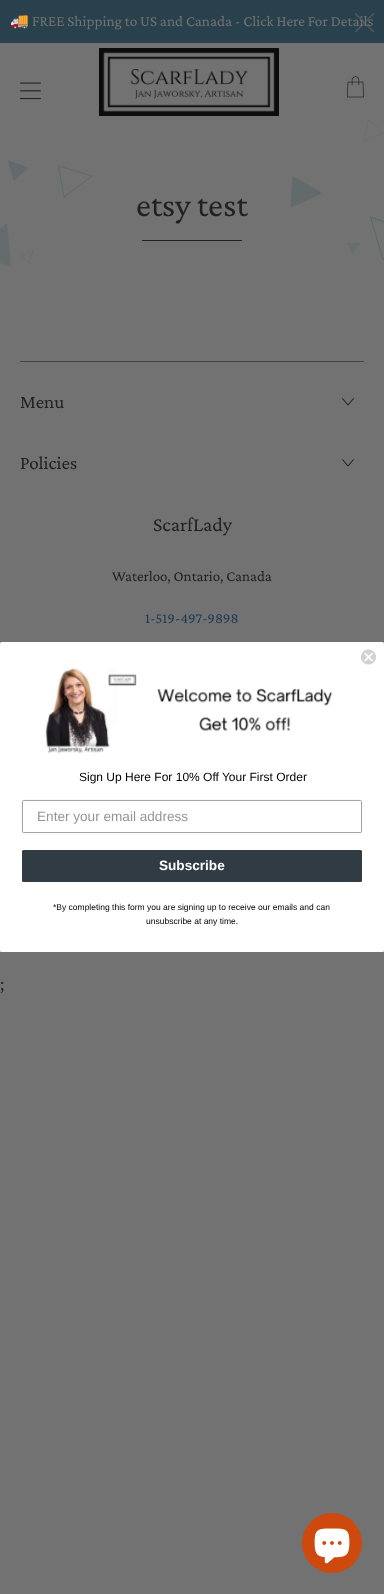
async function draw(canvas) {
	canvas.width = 384;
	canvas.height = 1594;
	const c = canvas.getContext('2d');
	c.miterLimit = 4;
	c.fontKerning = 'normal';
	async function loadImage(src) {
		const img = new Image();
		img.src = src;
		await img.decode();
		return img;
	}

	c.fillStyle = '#727272';
	c.fillRect(0, 0, 384, 1594);
	c.fillStyle = '#28414c';
	c.fillRect(0, 0, 384, 43);
	c.font = '15.2px Noto Color Emoji';
	c.fillStyle = '#727272';
	c.fillText('🚚', 10, 26);
	c.font = '15.2px Crimson Pro';
	c.fillText('FREE Shipping to US and Canada - Click Here For Details', 32, 26);
	c.drawImage(await loadImage('img1.png'), 355, 13, 19, 20);
	c.drawImage(await loadImage('img2.png'), 20, 82, 21, 18);
	c.drawImage(await loadImage('img3.png'), 99, 48, 180, 68);
	c.drawImage(await loadImage('img4.png'), 347, 76, 17, 22);
	c.fillStyle = '#626a6c';
	c.beginPath();
	c.moveTo(7.5, 160);
	c.lineTo(28.5, 167.5);
	c.lineTo(14, 181);
	c.closePath();
	c.fill();
	c.beginPath();
	c.moveTo(92, 176);
	c.lineTo(64, 197);
	c.lineTo(58.5, 166);
	c.closePath();
	c.strokeStyle = '#586568';
	c.lineWidth = 0.7;
	c.stroke();
	c.fillStyle = '#656b6d';
	c.beginPath();
	c.moveTo(7, 223);
	c.lineTo(11, 267);
	c.lineTo(-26, 252);
	c.closePath();
	c.fill();
	c.beginPath();
	c.moveTo(33, 250.5);
	c.lineTo(29, 263);
	c.lineTo(20.5, 255);
	c.closePath();
	c.strokeStyle = '#526265';
	c.lineWidth = 0.3;
	c.stroke();
	c.beginPath();
	c.moveTo(363.5, 141.5);
	c.lineTo(368.5, 120);
	c.lineTo(383.5, 133);
	c.closePath();
	c.strokeStyle = '#5f686a';
	c.lineWidth = 0.4;
	c.stroke();
	c.fillStyle = '#626a6c';
	c.beginPath();
	c.moveTo(323, 193.5);
	c.lineTo(290.5, 207.5);
	c.lineTo(292.5, 176);
	c.closePath();
	c.fill();
	c.fillStyle = '#686d6e';
	c.beginPath();
	c.moveTo(360.5, 243);
	c.lineTo(352.5, 253.5);
	c.lineTo(347, 243);
	c.closePath();
	c.fill();
	c.beginPath();
	c.moveTo(370.5, 217);
	c.lineTo(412, 232);
	c.lineTo(383, 259.5);
	c.closePath();
	c.strokeStyle = '#586568';
	c.lineWidth = 0.9;
	c.stroke();
	c.font = '34px Crimson Pro';
	c.fillStyle = '#212121';
	c.fillText('etsy test', 136, 216);
	c.fillRect(142, 240, 100, 1);
	c.fillStyle = '#444343';
	c.fillRect(20, 361, 344, 1);
	c.font = '19px Crimson Pro';
	c.fillStyle = '#212121';
	c.fillText('Menu', 20, 408);
	c.drawImage(await loadImage('img5.png'), 342, 398, 12, 8);
	c.fillText('Policies', 20, 469);
	c.drawImage(await loadImage('img5.png'), 342, 459, 12, 8);
	c.font = '20px Crimson Pro';
	c.fillText('ScarfLady', 153, 531);
	c.font = '15px Crimson Pro';
	c.fillText('Waterloo, Ontario, Canada', 112, 581);
	c.fillStyle = '#1c3953';
	c.fillText('1-519-497-9898', 145, 623);
	c.fillStyle = '#fff';
	c.beginPath();
	c.roundRect(0, 642, 384, 310, 1.5);
	c.fill();
	c.drawImage(await loadImage('img6.png'), 361, 649, 15, 16);
	c.drawImage(await loadImage('img7.png'), 45, 668, 288, 86);
	c.font = '12px Liberation Sans';
	c.fillStyle = '#000';
	c.fillText('Sign Up Here For 10% Off Your First Order', 79, 781);
	c.beginPath();
	c.roundRect(22.45, 800.45, 339.1, 32.1, 1.05);
	c.strokeStyle = '#949596';
	c.stroke();
	c.font = '13.6px Liberation Sans';
	c.fillStyle = '#949596';
	c.fillText('Enter your email address', 37, 821);
	c.fillStyle = '#303b43';
	c.beginPath();
	c.roundRect(22, 850, 340, 32, 1.5);
	c.fill();
	c.font = 'bold 13.6px Liberation Sans';
	c.fillStyle = '#fff';
	c.fillText('Subscribe', 159, 870);
	c.font = '8.5px Liberation Sans';
	c.fillStyle = '#000';
	c.fillText('*By completing this form you are signing up to receive our emails and can', 53, 910);
	c.fillText('unsubscribe at any time.', 146, 924);
	c.font = '19px Crimson Pro';
	c.fillStyle = '#212121';
	c.fillText(';', 0, 990);
	c.fillStyle = '#ce490e';
	c.beginPath();
	c.arc(332, 1543, 30, 0, 2 * Math.PI);
	c.fill();
	c.drawImage(await loadImage('img8.png'), 314, 1528, 36, 36);
}

draw(document.querySelector('canvas'));
